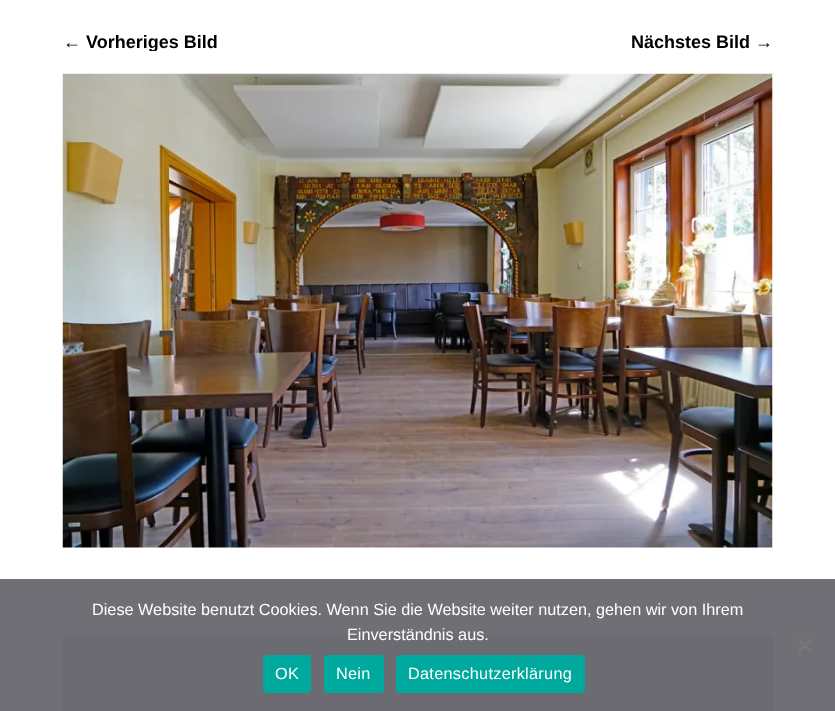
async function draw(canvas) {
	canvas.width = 835;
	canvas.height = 711;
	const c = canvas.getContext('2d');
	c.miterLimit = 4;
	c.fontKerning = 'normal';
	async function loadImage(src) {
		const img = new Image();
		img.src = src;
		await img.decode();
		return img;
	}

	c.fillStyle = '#fff';
	c.fillRect(0, 0, 835, 711);
	c.save();
	c.beginPath();
	c.rect(63, 31, 710, 20);
	c.clip();
	c.font = 'bold 18px Liberation Sans';
	c.fillStyle = '#000';
	c.fillText('← Vorheriges Bild', 63, 48);
	c.restore();
	c.font = 'bold 18px Liberation Sans';
	c.fillStyle = '#000';
	c.fillText('Nächstes Bild →', 631, 48);
	c.drawImage(await loadImage('img1.png'), 62, 73, 711, 475);
	c.fillStyle = '#f0f0f0';
	c.fillRect(63, 635, 710, 76);
	c.fillStyle = '#32323ab3';
	c.fillRect(0, 579, 835, 132);
	c.font = '16.25px Liberation Sans';
	c.fillStyle = '#fff';
	c.fillText('Diese Website benutzt Cookies. Wenn Sie die Website weiter nutzen, gehen wir von Ihrem', 92, 615);
	c.fillText('Einverständnis aus.', 347, 640);
	c.fillStyle = '#78787b';
	c.beginPath();
	c.moveTo(810.5, 638);
	c.lineTo(812.5, 640);
	c.lineTo(799.5, 653);
	c.lineTo(797.5, 651.5);
	c.closePath();
	c.fill();
	c.beginPath();
	c.moveTo(797.5, 640);
	c.lineTo(799.5, 638);
	c.lineTo(812.5, 651.5);
	c.lineTo(810.5, 653);
	c.closePath();
	c.fill();
	c.fillStyle = '#00a99d';
	c.beginPath();
	c.roundRect(263, 655, 48, 38, 4);
	c.fill();
	c.letterSpacing = '0.3px';
	c.fillStyle = '#fff';
	c.fillText('OK', 275, 679);
	c.fillStyle = '#00a99d';
	c.beginPath();
	c.roundRect(324, 655, 60, 38, 4);
	c.fill();
	c.fillStyle = '#fff';
	c.fillText('Nein', 336, 679);
	c.fillStyle = '#00a99d';
	c.beginPath();
	c.roundRect(396, 655, 189, 38, 4);
	c.fill();
	c.fillStyle = '#fff';
	c.fillText('Datenschutzerklärung', 408, 679);
}

draw(document.querySelector('canvas'));
